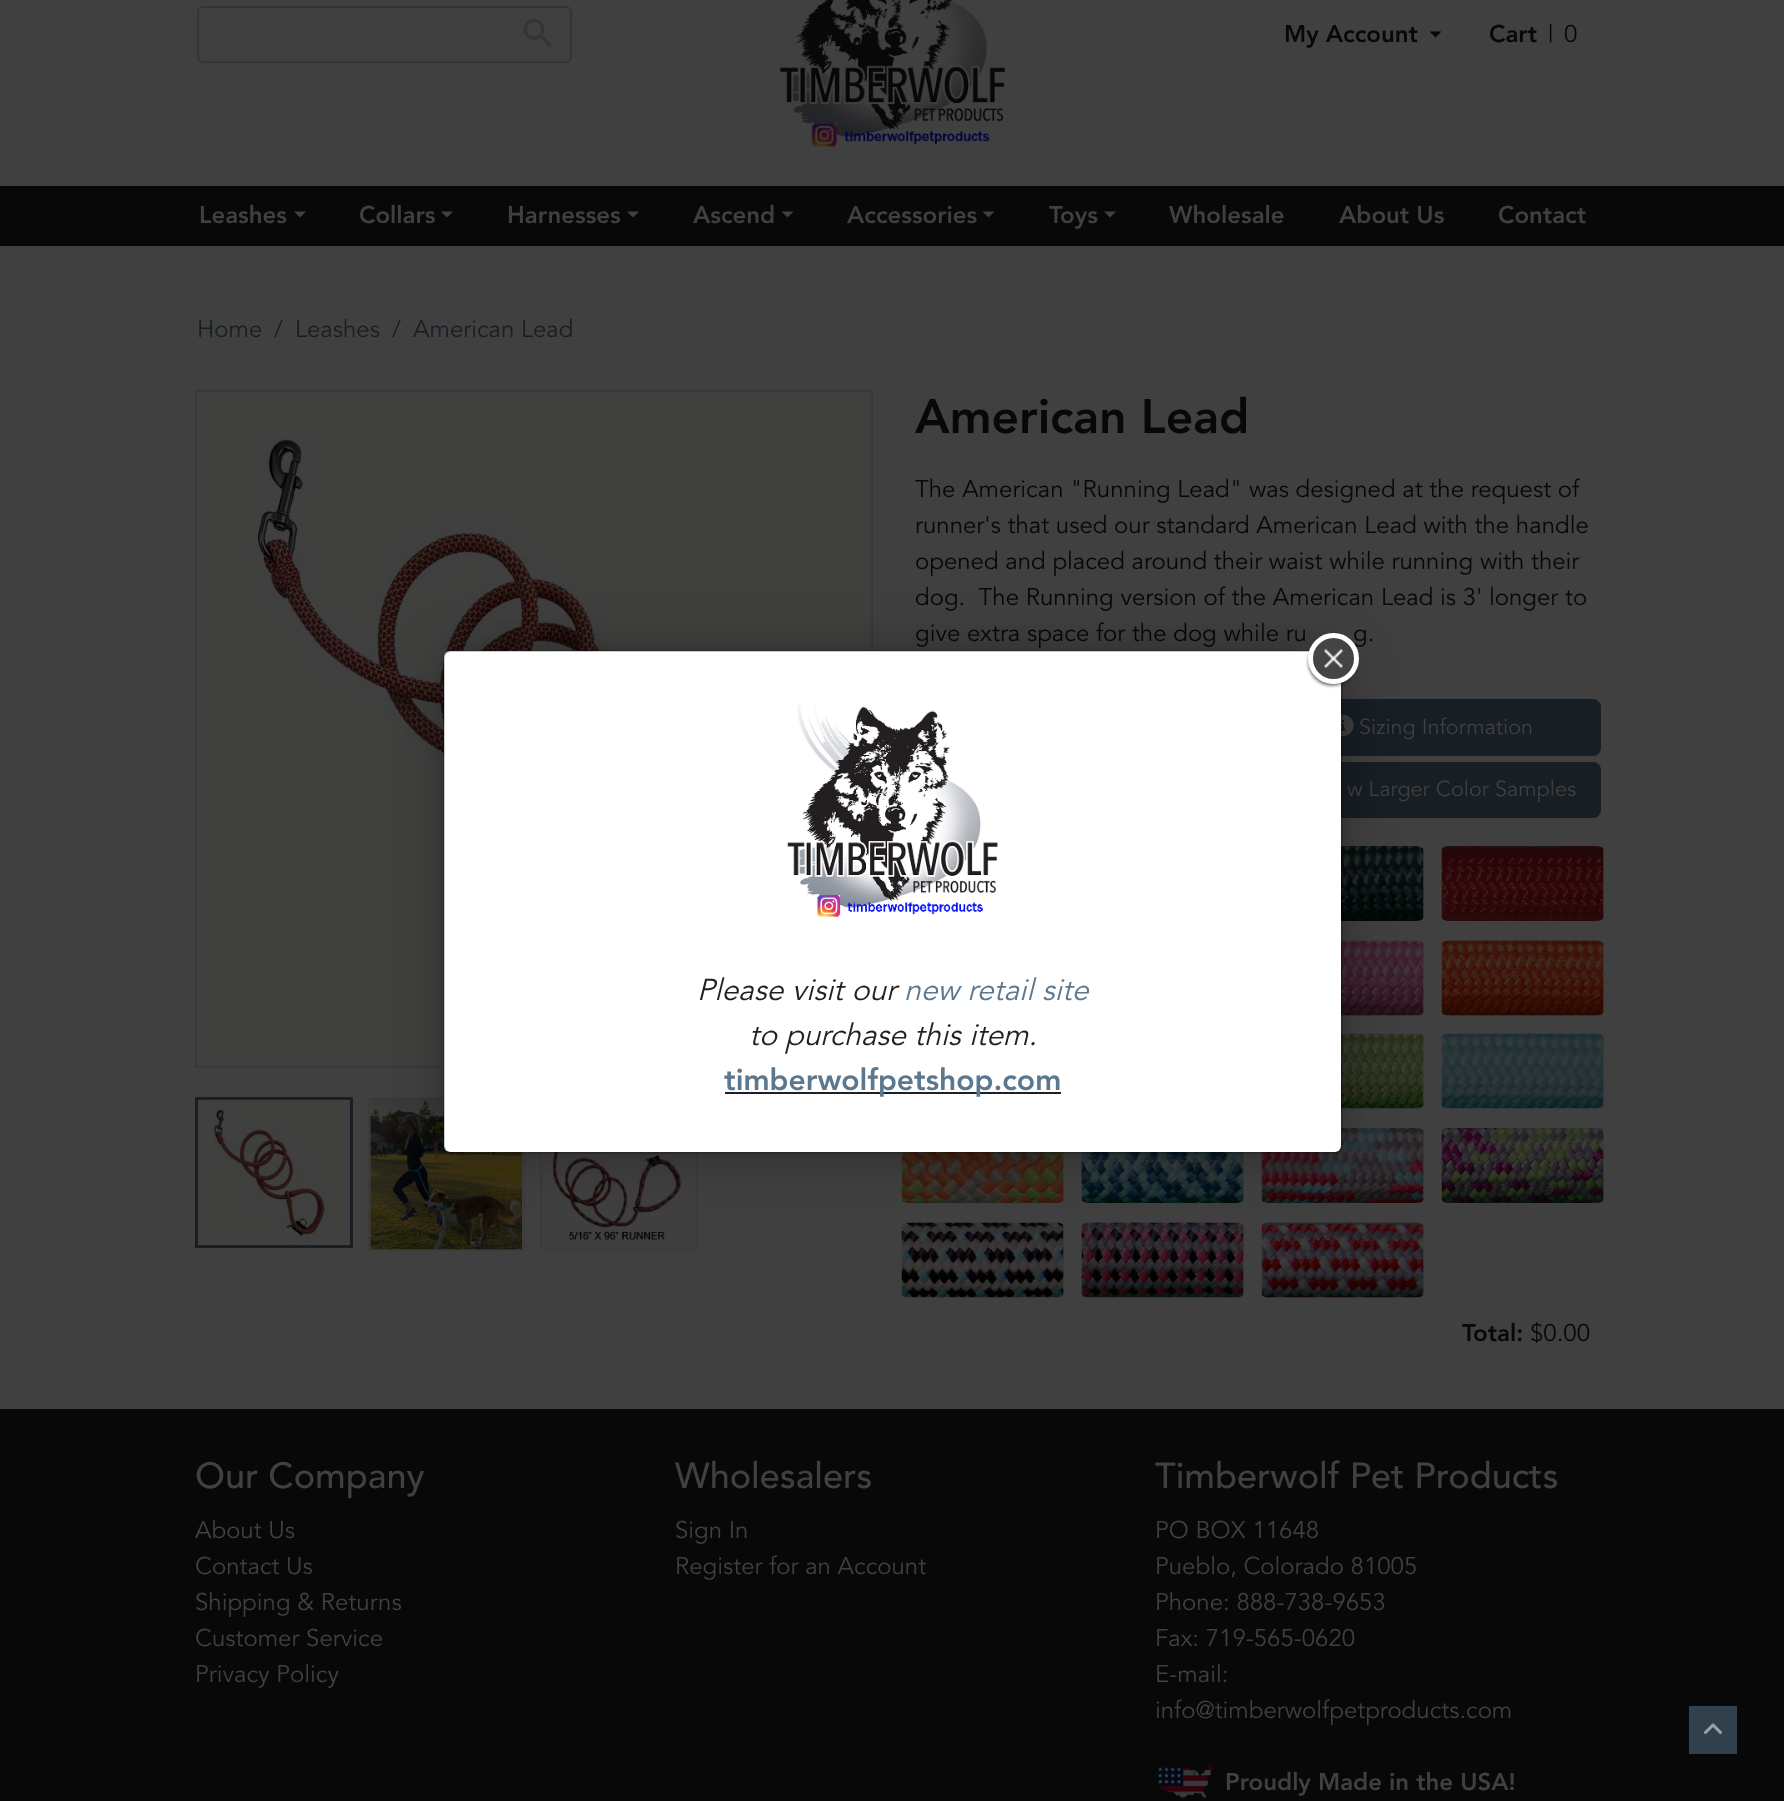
async function draw(canvas) {
	canvas.width = 1784;
	canvas.height = 1801;
	const c = canvas.getContext('2d');
	c.miterLimit = 4;
	c.fontKerning = 'normal';
	async function loadImage(src) {
		const img = new Image();
		img.src = src;
		await img.decode();
		return img;
	}

	c.fillStyle = '#404040';
	c.fillRect(0, 0, 1784, 1801);
	c.beginPath();
	c.roundRect(198, 7, 373, 55, 5);
	c.strokeStyle = '#343537';
	c.lineWidth = 2;
	c.stroke();
	c.drawImage(await loadImage('img1.png'), 523, 18, 29, 29);
	c.drawImage(await loadImage('img2.png'), 780, 0, 225, 147);
	c.font = '900 24px Avenir';
	c.fillStyle = '#090808';
	c.fillText('My Account', 1284, 42);
	c.beginPath();
	c.moveTo(1429.5, 31.5);
	c.lineTo(1441.5, 31.5);
	c.lineTo(1435.5, 37.5);
	c.closePath();
	c.fill();
	c.fillText('Cart', 1489, 42);
	c.font = '24px Avenir';
	c.fillText('|', 1548, 42);
	c.fillText('0', 1564, 42);
	c.fillRect(0, 186, 1784, 60);
	c.font = '900 24px Avenir';
	c.fillStyle = '#404040';
	c.fillText('Leashes', 199, 223);
	c.beginPath();
	c.moveTo(294, 211.5);
	c.lineTo(306, 211.5);
	c.lineTo(300, 217.5);
	c.closePath();
	c.fill();
	c.fillText('Collars', 359, 223);
	c.beginPath();
	c.moveTo(441, 211.5);
	c.lineTo(453, 211.5);
	c.lineTo(447, 217.5);
	c.closePath();
	c.fill();
	c.fillText('Harnesses', 507, 223);
	c.beginPath();
	c.moveTo(627, 211.5);
	c.lineTo(639, 211.5);
	c.lineTo(633, 217.5);
	c.closePath();
	c.fill();
	c.fillText('Ascend', 693, 223);
	c.beginPath();
	c.moveTo(781.5, 211.5);
	c.lineTo(793.5, 211.5);
	c.lineTo(787.5, 217.5);
	c.closePath();
	c.fill();
	c.fillText('Accessories', 847, 223);
	c.beginPath();
	c.moveTo(982.5, 211.5);
	c.lineTo(994.5, 211.5);
	c.lineTo(988.5, 217.5);
	c.closePath();
	c.fill();
	c.fillText('Toys', 1049, 223);
	c.beginPath();
	c.moveTo(1104, 211.5);
	c.lineTo(1116, 211.5);
	c.lineTo(1110, 217.5);
	c.closePath();
	c.fill();
	for (const [text, x, y] of [
		['Wholesale', 1169, 223],
		['About Us', 1339, 223],
		['Contact', 1498, 223],
	]) {
		c.fillText(text, x, y);
	}
	c.font = '24px Avenir';
	c.fillStyle = '#171e24';
	for (const [text, x, y] of [
		['Home', 197, 337],
		['/', 274, 337],
		['Leashes', 295, 337],
		['/', 392, 337],
		['American Lead', 413, 337],
	]) {
		c.fillText(text, x, y);
	}
	c.strokeStyle = '#393939';
	c.strokeRect(196, 391, 676, 676);
	c.drawImage(await loadImage('img3.png'), 196, 391, 676, 676);
	c.strokeStyle = '#171e24';
	c.lineWidth = 3;
	c.strokeRect(196.5, 1098.5, 155, 148);
	c.drawImage(await loadImage('img4.png'), 201, 1099, 146, 144);
	c.strokeStyle = '#3b3c3c';
	c.lineWidth = 2;
	c.strokeRect(369, 1098, 155, 152);
	c.drawImage(await loadImage('img5.png'), 370, 1098, 152, 152);
	c.strokeRect(541, 1098, 156, 152);
	c.drawImage(await loadImage('img6.png'), 543, 1152, 152, 98);
	c.font = '900 48px Avenir';
	c.fillStyle = '#090808';
	c.fillText('American Lead', 915, 433);
	c.font = '24px Avenir';
	for (const [text, x, y] of [
		['The American "Running Lead" was designed at the request of', 915, 497],
		['runner\'s that used our standard American Lead with the handle', 915, 533],
		['opened and placed around their waist while running with their', 915, 569],
		['dog.  The Running version of the American Lead is 3\' longer to', 915, 605],
		['give extra space for the dog while ru', 915, 641],
		['g.', 1353, 641],
	]) {
		c.fillText(text, x, y);
	}
	c.fillStyle = '#171e24';
	c.beginPath();
	c.roundRect(1266, 700, 334, 55, 7);
	c.fill();
	c.strokeStyle = '#171e24';
	c.stroke();
	c.drawImage(await loadImage('img7.png'), 1341, 714, 13, 23);
	c.font = '21.6px Avenir';
	c.fillStyle = '#404040';
	c.fillText('Sizing Information', 1359, 734);
	c.fillStyle = '#171e24';
	c.beginPath();
	c.roundRect(1266, 763, 334, 54, 7);
	c.fill();
	c.stroke();
	c.fillStyle = '#404040';
	c.fillText('w Larger Color Samples', 1347, 796);
	c.fillStyle = '#3c3c3c';
	c.beginPath();
	c.moveTo(1270, 846);
	c.lineTo(1415, 846);
	c.bezierCurveTo(1420, 846, 1424, 848, 1424, 850);
	c.lineTo(1424, 917);
	c.bezierCurveTo(1424, 919, 1420, 921, 1415, 921);
	c.lineTo(1270, 921);
	c.bezierCurveTo(1265, 921, 1262, 919, 1262, 917);
	c.lineTo(1262, 850);
	c.bezierCurveTo(1262, 848, 1265, 846, 1270, 846);
	c.closePath();
	c.fill();
	c.drawImage(await loadImage('img8.png'), 1341, 846, 83, 75);
	c.beginPath();
	c.moveTo(1450, 846);
	c.lineTo(1595, 846);
	c.bezierCurveTo(1600, 846, 1604, 848, 1604, 850);
	c.lineTo(1604, 917);
	c.bezierCurveTo(1604, 919, 1600, 921, 1595, 921);
	c.lineTo(1450, 921);
	c.bezierCurveTo(1445, 921, 1442, 919, 1442, 917);
	c.lineTo(1442, 850);
	c.bezierCurveTo(1442, 848, 1445, 846, 1450, 846);
	c.closePath();
	c.fill();
	c.drawImage(await loadImage('img9.png'), 1441, 846, 163, 75);
	c.beginPath();
	c.moveTo(1270, 940);
	c.lineTo(1415, 940);
	c.bezierCurveTo(1420, 940, 1424, 942, 1424, 944);
	c.lineTo(1424, 1012);
	c.bezierCurveTo(1424, 1014, 1420, 1016, 1415, 1016);
	c.lineTo(1270, 1016);
	c.bezierCurveTo(1265, 1016, 1262, 1014, 1262, 1012);
	c.lineTo(1262, 944);
	c.bezierCurveTo(1262, 942, 1265, 940, 1270, 940);
	c.closePath();
	c.fill();
	c.drawImage(await loadImage('img10.png'), 1341, 940, 83, 76);
	c.beginPath();
	c.moveTo(1450, 940);
	c.lineTo(1595, 940);
	c.bezierCurveTo(1600, 940, 1604, 942, 1604, 944);
	c.lineTo(1604, 1012);
	c.bezierCurveTo(1604, 1014, 1600, 1016, 1595, 1016);
	c.lineTo(1450, 1016);
	c.bezierCurveTo(1445, 1016, 1442, 1014, 1442, 1012);
	c.lineTo(1442, 944);
	c.bezierCurveTo(1442, 942, 1445, 940, 1450, 940);
	c.closePath();
	c.fill();
	c.drawImage(await loadImage('img11.png'), 1441, 940, 163, 76);
	c.beginPath();
	c.moveTo(1270, 1034);
	c.lineTo(1415, 1034);
	c.bezierCurveTo(1420, 1034, 1424, 1035, 1424, 1037);
	c.lineTo(1424, 1105);
	c.bezierCurveTo(1424, 1107, 1420, 1108, 1415, 1108);
	c.lineTo(1270, 1108);
	c.bezierCurveTo(1265, 1108, 1262, 1107, 1262, 1105);
	c.lineTo(1262, 1037);
	c.bezierCurveTo(1262, 1035, 1265, 1034, 1270, 1034);
	c.closePath();
	c.fill();
	c.drawImage(await loadImage('img12.png'), 1341, 1033, 83, 76);
	c.beginPath();
	c.moveTo(1450, 1034);
	c.lineTo(1595, 1034);
	c.bezierCurveTo(1600, 1034, 1604, 1035, 1604, 1037);
	c.lineTo(1604, 1105);
	c.bezierCurveTo(1604, 1107, 1600, 1108, 1595, 1108);
	c.lineTo(1450, 1108);
	c.bezierCurveTo(1445, 1108, 1442, 1107, 1442, 1105);
	c.lineTo(1442, 1037);
	c.bezierCurveTo(1442, 1035, 1445, 1034, 1450, 1034);
	c.closePath();
	c.fill();
	c.drawImage(await loadImage('img13.png'), 1441, 1033, 163, 76);
	c.beginPath();
	c.moveTo(910, 1128);
	c.lineTo(1055, 1128);
	c.bezierCurveTo(1060, 1128, 1064, 1130, 1064, 1132);
	c.lineTo(1064, 1199);
	c.bezierCurveTo(1064, 1201, 1060, 1203, 1055, 1203);
	c.lineTo(910, 1203);
	c.bezierCurveTo(905, 1203, 902, 1201, 902, 1199);
	c.lineTo(902, 1132);
	c.bezierCurveTo(902, 1130, 905, 1128, 910, 1128);
	c.closePath();
	c.fill();
	c.drawImage(await loadImage('img14.png'), 901, 1152, 163, 51);
	c.beginPath();
	c.moveTo(1090, 1128);
	c.lineTo(1235, 1128);
	c.bezierCurveTo(1240, 1128, 1244, 1130, 1244, 1132);
	c.lineTo(1244, 1199);
	c.bezierCurveTo(1244, 1201, 1240, 1203, 1235, 1203);
	c.lineTo(1090, 1203);
	c.bezierCurveTo(1085, 1203, 1082, 1201, 1082, 1199);
	c.lineTo(1082, 1132);
	c.bezierCurveTo(1082, 1130, 1085, 1128, 1090, 1128);
	c.closePath();
	c.fill();
	c.drawImage(await loadImage('img15.png'), 1081, 1152, 163, 51);
	c.beginPath();
	c.moveTo(1270, 1128);
	c.lineTo(1415, 1128);
	c.bezierCurveTo(1420, 1128, 1424, 1130, 1424, 1132);
	c.lineTo(1424, 1199);
	c.bezierCurveTo(1424, 1201, 1420, 1203, 1415, 1203);
	c.lineTo(1270, 1203);
	c.bezierCurveTo(1265, 1203, 1262, 1201, 1262, 1199);
	c.lineTo(1262, 1132);
	c.bezierCurveTo(1262, 1130, 1265, 1128, 1270, 1128);
	c.closePath();
	c.fill();
	c.drawImage(await loadImage('img16.png'), 1261, 1128, 163, 75);
	c.beginPath();
	c.moveTo(1450, 1128);
	c.lineTo(1595, 1128);
	c.bezierCurveTo(1600, 1128, 1604, 1130, 1604, 1132);
	c.lineTo(1604, 1199);
	c.bezierCurveTo(1604, 1201, 1600, 1203, 1595, 1203);
	c.lineTo(1450, 1203);
	c.bezierCurveTo(1445, 1203, 1442, 1201, 1442, 1199);
	c.lineTo(1442, 1132);
	c.bezierCurveTo(1442, 1130, 1445, 1128, 1450, 1128);
	c.closePath();
	c.fill();
	c.drawImage(await loadImage('img17.png'), 1441, 1128, 163, 75);
	c.beginPath();
	c.moveTo(910, 1222);
	c.lineTo(1055, 1222);
	c.bezierCurveTo(1060, 1222, 1064, 1224, 1064, 1226);
	c.lineTo(1064, 1294);
	c.bezierCurveTo(1064, 1296, 1060, 1298, 1055, 1298);
	c.lineTo(910, 1298);
	c.bezierCurveTo(905, 1298, 902, 1296, 902, 1294);
	c.lineTo(902, 1226);
	c.bezierCurveTo(902, 1224, 905, 1222, 910, 1222);
	c.closePath();
	c.fill();
	c.drawImage(await loadImage('img18.png'), 901, 1222, 163, 76);
	c.beginPath();
	c.moveTo(1090, 1222);
	c.lineTo(1235, 1222);
	c.bezierCurveTo(1240, 1222, 1244, 1224, 1244, 1226);
	c.lineTo(1244, 1294);
	c.bezierCurveTo(1244, 1296, 1240, 1298, 1235, 1298);
	c.lineTo(1090, 1298);
	c.bezierCurveTo(1085, 1298, 1082, 1296, 1082, 1294);
	c.lineTo(1082, 1226);
	c.bezierCurveTo(1082, 1224, 1085, 1222, 1090, 1222);
	c.closePath();
	c.fill();
	c.drawImage(await loadImage('img19.png'), 1081, 1222, 163, 76);
	c.beginPath();
	c.moveTo(1270, 1222);
	c.lineTo(1415, 1222);
	c.bezierCurveTo(1420, 1222, 1424, 1224, 1424, 1226);
	c.lineTo(1424, 1294);
	c.bezierCurveTo(1424, 1296, 1420, 1298, 1415, 1298);
	c.lineTo(1270, 1298);
	c.bezierCurveTo(1265, 1298, 1262, 1296, 1262, 1294);
	c.lineTo(1262, 1226);
	c.bezierCurveTo(1262, 1224, 1265, 1222, 1270, 1222);
	c.closePath();
	c.fill();
	c.drawImage(await loadImage('img20.png'), 1261, 1222, 163, 76);
	c.font = '900 24px Avenir';
	c.fillStyle = '#090808';
	c.fillText('Total:', 1462, 1341);
	c.font = '24px Avenir';
	c.fillText('$0.00', 1530, 1341);
	c.fillRect(0, 1409, 1784, 392);
	c.font = '500 36px Avenir';
	c.fillStyle = '#404040';
	c.fillText('Our Company', 195, 1488);
	c.font = '24px Avenir';
	for (const [text, x, y] of [
		['About Us', 195, 1538],
		['Contact Us', 195, 1574],
		['Shipping & Returns', 195, 1610],
		['Customer Service', 195, 1646],
		['Privacy Policy', 195, 1682],
	]) {
		c.fillText(text, x, y);
	}
	c.font = '500 36px Avenir';
	c.fillText('Wholesalers', 675, 1488);
	c.font = '24px Avenir';
	c.fillText('Sign In', 675, 1538);
	c.fillText('Register for an Account', 675, 1574);
	c.font = '500 36px Avenir';
	c.fillText('Timberwolf Pet Products', 1155, 1488);
	c.font = '24px Avenir';
	for (const [text, x, y] of [
		['PO BOX 11648', 1155, 1538],
		['Pueblo, Colorado 81005', 1155, 1574],
		['Phone: 888-738-9653', 1155, 1610],
		['Fax: 719-565-0620', 1155, 1646],
		['E-mail:', 1155, 1682],
		['info@timberwolfpetproducts.com', 1155, 1718],
	]) {
		c.fillText(text, x, y);
	}
	c.drawImage(await loadImage('img21.png'), 1155, 1764, 58, 37);
	c.font = '900 24px Avenir';
	c.fillText('Proudly Made in the USA!', 1225, 1790);
	c.fillStyle = '#0000004d';
	c.filter = 'blur(25.5px)';
	c.beginPath();
	c.roundRect(443, 650, 900, 504, 8);
	c.fill();
	c.filter = 'none';
	c.fillStyle = '#fff';
	c.beginPath();
	c.roundRect(444, 651, 897, 501, 6);
	c.fill();
	c.beginPath();
	c.roundRect(444, 651, 898, 502, 7);
	c.strokeStyle = '#00000033';
	c.stroke();
	c.fillStyle = '#00000080';
	c.filter = 'blur(1.5px)';
	c.beginPath();
	c.roundRect(1308, 638, 48, 48, 24);
	c.fill();
	c.filter = 'none';
	c.fillStyle = '#444';
	c.beginPath();
	c.arc(1333.5, 658.5, 23, 0, 2 * Math.PI);
	c.fill();
	c.strokeStyle = '#fff';
	c.lineWidth = 5;
	c.stroke();
	c.drawImage(await loadImage('img22.png'), 1324, 648, 19, 21);
	c.drawImage(await loadImage('img23.png'), 787, 702, 211, 215);
	c.font = 'italic 30px Avenir';
	c.fillStyle = '#231f20';
	c.fillText('Please visit our', 697, 1000);
	c.fillStyle = '#5c788f';
	c.fillText('new retail site', 904, 1000);
	c.fillStyle = '#231f20';
	c.fillText('to purchase this item.', 749, 1045);
	c.fillRect(725, 1092, 336, 2);
	c.font = '900 30px Avenir';
	c.fillStyle = '#5c788f';
	c.fillText('timberwolfpetshop.com', 724, 1090);
	c.fillStyle = '#32404c';
	c.fillRect(1689, 1706, 48, 48);
	c.drawImage(await loadImage('img24.png'), 1704, 1723, 18, 11);
}

draw(document.querySelector('canvas'));
